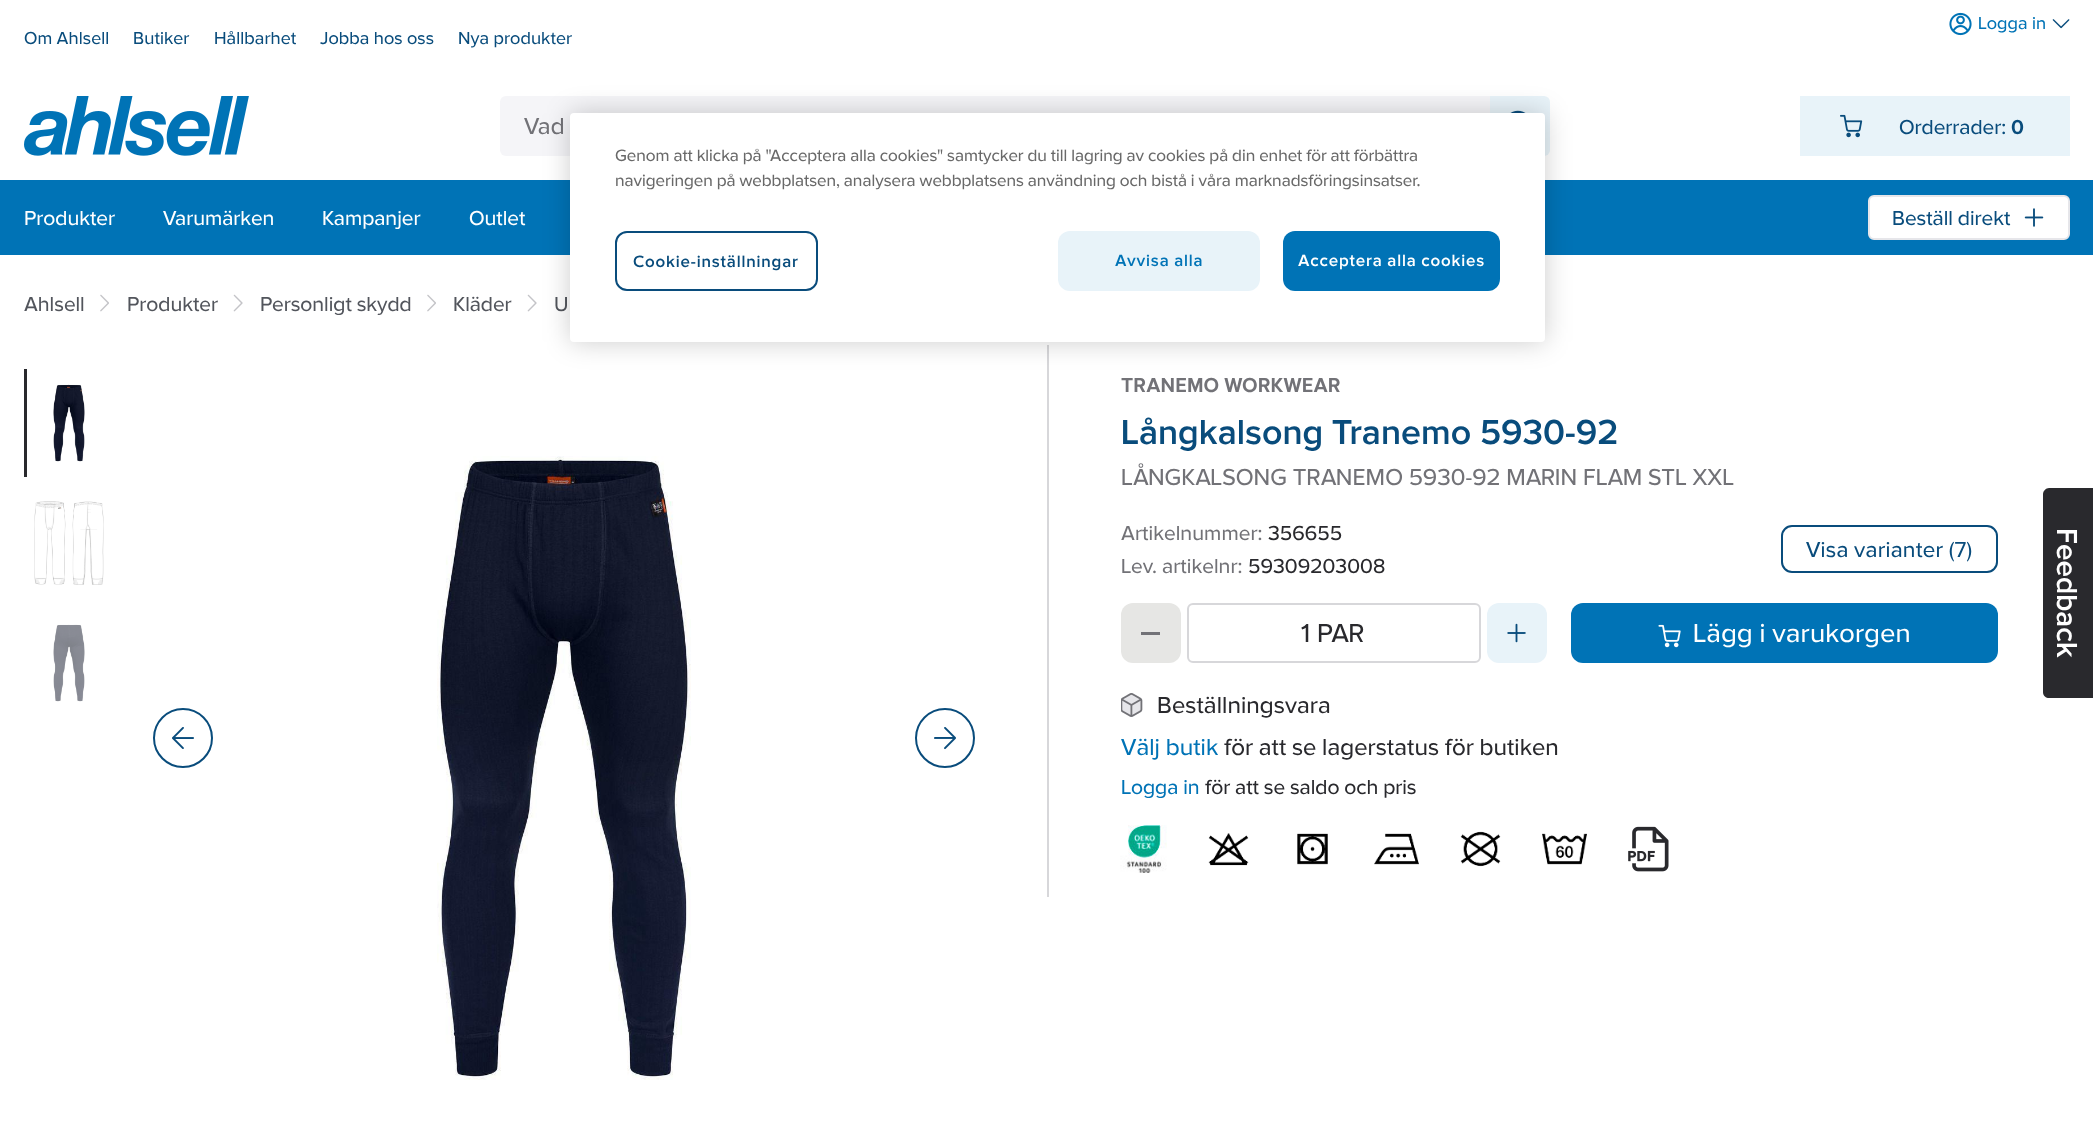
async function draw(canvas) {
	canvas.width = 2093;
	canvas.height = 1126;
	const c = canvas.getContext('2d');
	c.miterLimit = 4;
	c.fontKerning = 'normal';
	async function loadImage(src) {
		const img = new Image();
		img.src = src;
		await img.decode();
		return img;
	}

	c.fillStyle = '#fff';
	c.fillRect(0, 0, 2093, 1126);
	c.drawImage(await loadImage('img1.png'), 1949, 12, 23, 24);
	c.letterSpacing = '0.1px';
	c.font = '18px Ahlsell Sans';
	c.fillStyle = '#0073b6';
	c.fillText('Logga in', 1978, 29);
	c.drawImage(await loadImage('img2.png'), 2052, 19, 18, 10);
	c.fillStyle = '#094c7c';
	for (const [text, x, y] of [
		['Om Ahlsell', 24, 44],
		['Butiker', 133, 44],
		['Hållbarhet', 214, 44],
		['Jobba hos oss', 320, 44],
		['Nya produkter', 458, 44],
	]) {
		c.fillText(text, x, y);
	}
	c.drawImage(await loadImage('img3.png'), 24, 96, 225, 60);
	c.fillStyle = '#f5f5f8';
	c.beginPath();
	c.roundRect(500, 96, 990, 60, [6, 0, 0, 6]);
	c.fill();
	c.font = '24px Ahlsell Sans';
	c.fillStyle = '#727277';
	c.fillText('Vad', 524, 134);
	c.fillStyle = '#e8f3f9';
	c.beginPath();
	c.roundRect(1490, 96, 60, 60, [0, 6, 6, 0]);
	c.fill();
	c.drawImage(await loadImage('img4.png'), 1510, 110, 16, 3);
	c.fillRect(1800, 96, 270, 60);
	c.drawImage(await loadImage('img5.png'), 1840, 114, 23, 24);
	c.letterSpacing = '0px';
	c.font = '21px Ahlsell Sans';
	c.fillStyle = '#094c7c';
	c.fillText('Orderrader:', 1899, 134);
	c.font = 'bold 21px Ahlsell Sans';
	c.fillText('0', 2011, 134);
	c.fillStyle = '#0073b6';
	c.fillRect(0, 180, 2093, 75);
	c.font = '21px Ahlsell Sans';
	c.fillStyle = '#fff';
	for (const [text, x, y] of [
		['Produkter', 24, 225],
		['Varumärken', 163, 225],
		['Kampanjer', 322, 225],
		['Outlet', 469, 225],
	]) {
		c.fillText(text, x, y);
	}
	c.beginPath();
	c.roundRect(1869, 196, 200, 43, 5);
	c.fill();
	c.strokeStyle = '#e6e6ea';
	c.lineWidth = 2;
	c.stroke();
	c.fillStyle = '#094c7c';
	c.fillText('Beställ direkt', 1892, 225);
	c.drawImage(await loadImage('img6.png'), 2024, 208, 20, 19);
	c.fillStyle = '#52555c';
	c.fillText('Ahlsell', 24, 311);
	c.drawImage(await loadImage('img7.png'), 100, 294, 9, 18);
	c.fillText('Produkter', 127, 311);
	c.drawImage(await loadImage('img8.png'), 233, 294, 10, 18);
	c.fillText('Personligt skydd', 260, 311);
	c.drawImage(await loadImage('img7.png'), 427, 294, 9, 18);
	c.fillText('Kläder', 453, 311);
	c.drawImage(await loadImage('img8.png'), 527, 294, 10, 18);
	c.fillText('U', 554, 311);
	c.fillStyle = '#29292d';
	c.fillRect(24, 369, 3, 108);
	c.drawImage(await loadImage('img9.png'), 53, 384, 32, 78);
	c.drawImage(await loadImage('img10.png'), 34, 501, 70, 84);
	c.drawImage(await loadImage('img11.png'), 53, 624, 32, 78);
	c.beginPath();
	c.arc(183, 738, 29, 0, 2 * Math.PI);
	c.strokeStyle = '#094c7c';
	c.stroke();
	c.drawImage(await loadImage('img12.png'), 172, 727, 22, 22);
	c.drawImage(await loadImage('img13.png'), 437, 456, 254, 624);
	c.beginPath();
	c.arc(945, 738, 29, 0, 2 * Math.PI);
	c.stroke();
	c.drawImage(await loadImage('img14.png'), 934, 727, 22, 23);
	c.fillStyle = '#d7d7da';
	c.fillRect(1047, 345, 2, 552);
	c.letterSpacing = '0.1px';
	c.font = 'bold 21px Ahlsell Sans';
	c.fillStyle = '#727277';
	c.fillText('TRANEMO WORKWEAR', 1121, 392);
	c.font = '600 36px Ahlsell Sans';
	c.fillStyle = '#094c7c';
	c.fillText('Långkalsong Tranemo 5930-92', 1121, 444);
	c.font = '24px Ahlsell Sans';
	c.fillStyle = '#727277';
	c.fillText('LÅNGKALSONG TRANEMO 5930-92 MARIN FLAM STL XXL', 1121, 485);
	c.font = '21px Ahlsell Sans';
	c.fillText('Artikelnummer:', 1121, 540);
	c.fillStyle = '#29292d';
	c.fillText('356655', 1268, 540);
	c.fillStyle = '#727277';
	c.fillText('Lev. artikelnr:', 1121, 573);
	c.fillStyle = '#29292d';
	c.fillText('59309203008', 1248, 573);
	c.beginPath();
	c.roundRect(1782, 526, 215, 46, 10);
	c.stroke();
	c.letterSpacing = '0.25px';
	c.font = '22.5px Ahlsell Sans';
	c.fillStyle = '#094c7c';
	c.fillText('Visa varianter (7)', 1806, 557);
	c.fillStyle = '#e6e6e4';
	c.beginPath();
	c.roundRect(1121, 603, 60, 60, 12);
	c.fill();
	c.fillStyle = '#727277';
	c.fillRect(1141, 632, 19, 3);
	c.beginPath();
	c.roundRect(1188, 604, 292, 58, 5);
	c.strokeStyle = '#d7d7da';
	c.stroke();
	c.letterSpacing = '0.3px';
	c.font = '27px Ahlsell Sans';
	c.fillStyle = '#29292d';
	c.fillText('1 PAR', 1301, 642);
	c.fillStyle = '#e8f3f9';
	c.beginPath();
	c.roundRect(1487, 603, 60, 60, 12);
	c.fill();
	c.drawImage(await loadImage('img15.png'), 1507, 623, 19, 20);
	c.fillStyle = '#0073b6';
	c.beginPath();
	c.roundRect(1571, 603, 427, 60, 12);
	c.fill();
	c.drawImage(await loadImage('img16.png'), 1658, 624, 23, 24);
	c.fillStyle = '#fff';
	c.fillText('Lägg i varukorgen', 1693, 642);
	c.drawImage(await loadImage('img17.png'), 1121, 693, 22, 24);
	c.letterSpacing = '0.1px';
	c.font = '24px Ahlsell Sans';
	c.fillStyle = '#29292d';
	c.fillText('Beställningsvara', 1157, 713);
	c.fillStyle = '#0073b6';
	c.fillText('Välj butik', 1121, 755);
	c.fillStyle = '#29292d';
	c.fillText('för att se lagerstatus för butiken', 1224, 755);
	c.letterSpacing = '0px';
	c.font = '21px Ahlsell Sans';
	c.fillStyle = '#0073b6';
	c.fillText('Logga in', 1121, 794);
	c.fillStyle = '#29292d';
	c.fillText('för att se saldo och pris', 1205, 794);
	c.drawImage(await loadImage('img18.png'), 1120, 825, 47, 48);
	c.drawImage(await loadImage('img19.png'), 1208, 833, 41, 33);
	c.drawImage(await loadImage('img20.png'), 1297, 833, 31, 32);
	c.drawImage(await loadImage('img21.png'), 1374, 833, 45, 32);
	c.drawImage(await loadImage('img22.png'), 1460, 831, 41, 36);
	c.drawImage(await loadImage('img23.png'), 1542, 833, 45, 32);
	c.drawImage(await loadImage('img24.png'), 1628, 826, 41, 46);
	c.beginPath();
	c.moveTo(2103, 488);
	c.lineTo(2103, 698);
	c.lineTo(2049, 698);
	c.bezierCurveTo(2046, 698, 2043, 696, 2043, 692);
	c.lineTo(2043, 494);
	c.bezierCurveTo(2043, 491, 2046, 488, 2049, 488);
	c.closePath();
	c.fill();
	c.font = '600 30px Ahlsell Sans';
	c.fillStyle = '#fff';
	c.save();
	c.translate(2057, 528);
	c.rotate(90 * Math.PI / 180);
	c.fillText('Feedback', 0, 0);
	c.restore();
	c.fillStyle = '#00000033';
	c.filter = 'blur(13.5px)';
	c.beginPath();
	c.roundRect(570, 113, 975, 229, 4);
	c.fill();
	c.filter = 'none';
	c.fillStyle = '#fff';
	c.beginPath();
	c.roundRect(570, 113, 975, 229, 4);
	c.fill();
	c.font = '17.05px Ahlsell Sans';
	c.fillStyle = '#696969';
	c.fillText('Genom att klicka på "Acceptera alla cookies" samtycker du till lagring av cookies på din enhet för att förbättra', 615, 161);
	c.fillText('navigeringen på webbplatsen, analysera webbplatsens användning och bistå i våra marknadsföringsinsatser.', 615, 186);
	c.beginPath();
	c.roundRect(616, 232, 201, 58, 11);
	c.strokeStyle = '#094c7c';
	c.stroke();
	c.letterSpacing = '0.85px';
	c.font = '600 17.05px Ahlsell Sans';
	c.fillStyle = '#094c7c';
	c.fillText('Cookie-inställningar', 633, 267);
	c.fillStyle = '#e8f3f9';
	c.beginPath();
	c.roundRect(1058, 231, 202, 60, 12);
	c.fill();
	c.fillStyle = '#0073b6';
	c.fillText('Avvisa alla', 1115, 266);
	c.beginPath();
	c.roundRect(1283, 231, 217, 60, 12);
	c.fill();
	c.fillStyle = '#fff';
	c.fillText('Acceptera alla cookies', 1298, 266);
}

draw(document.querySelector('canvas'));
